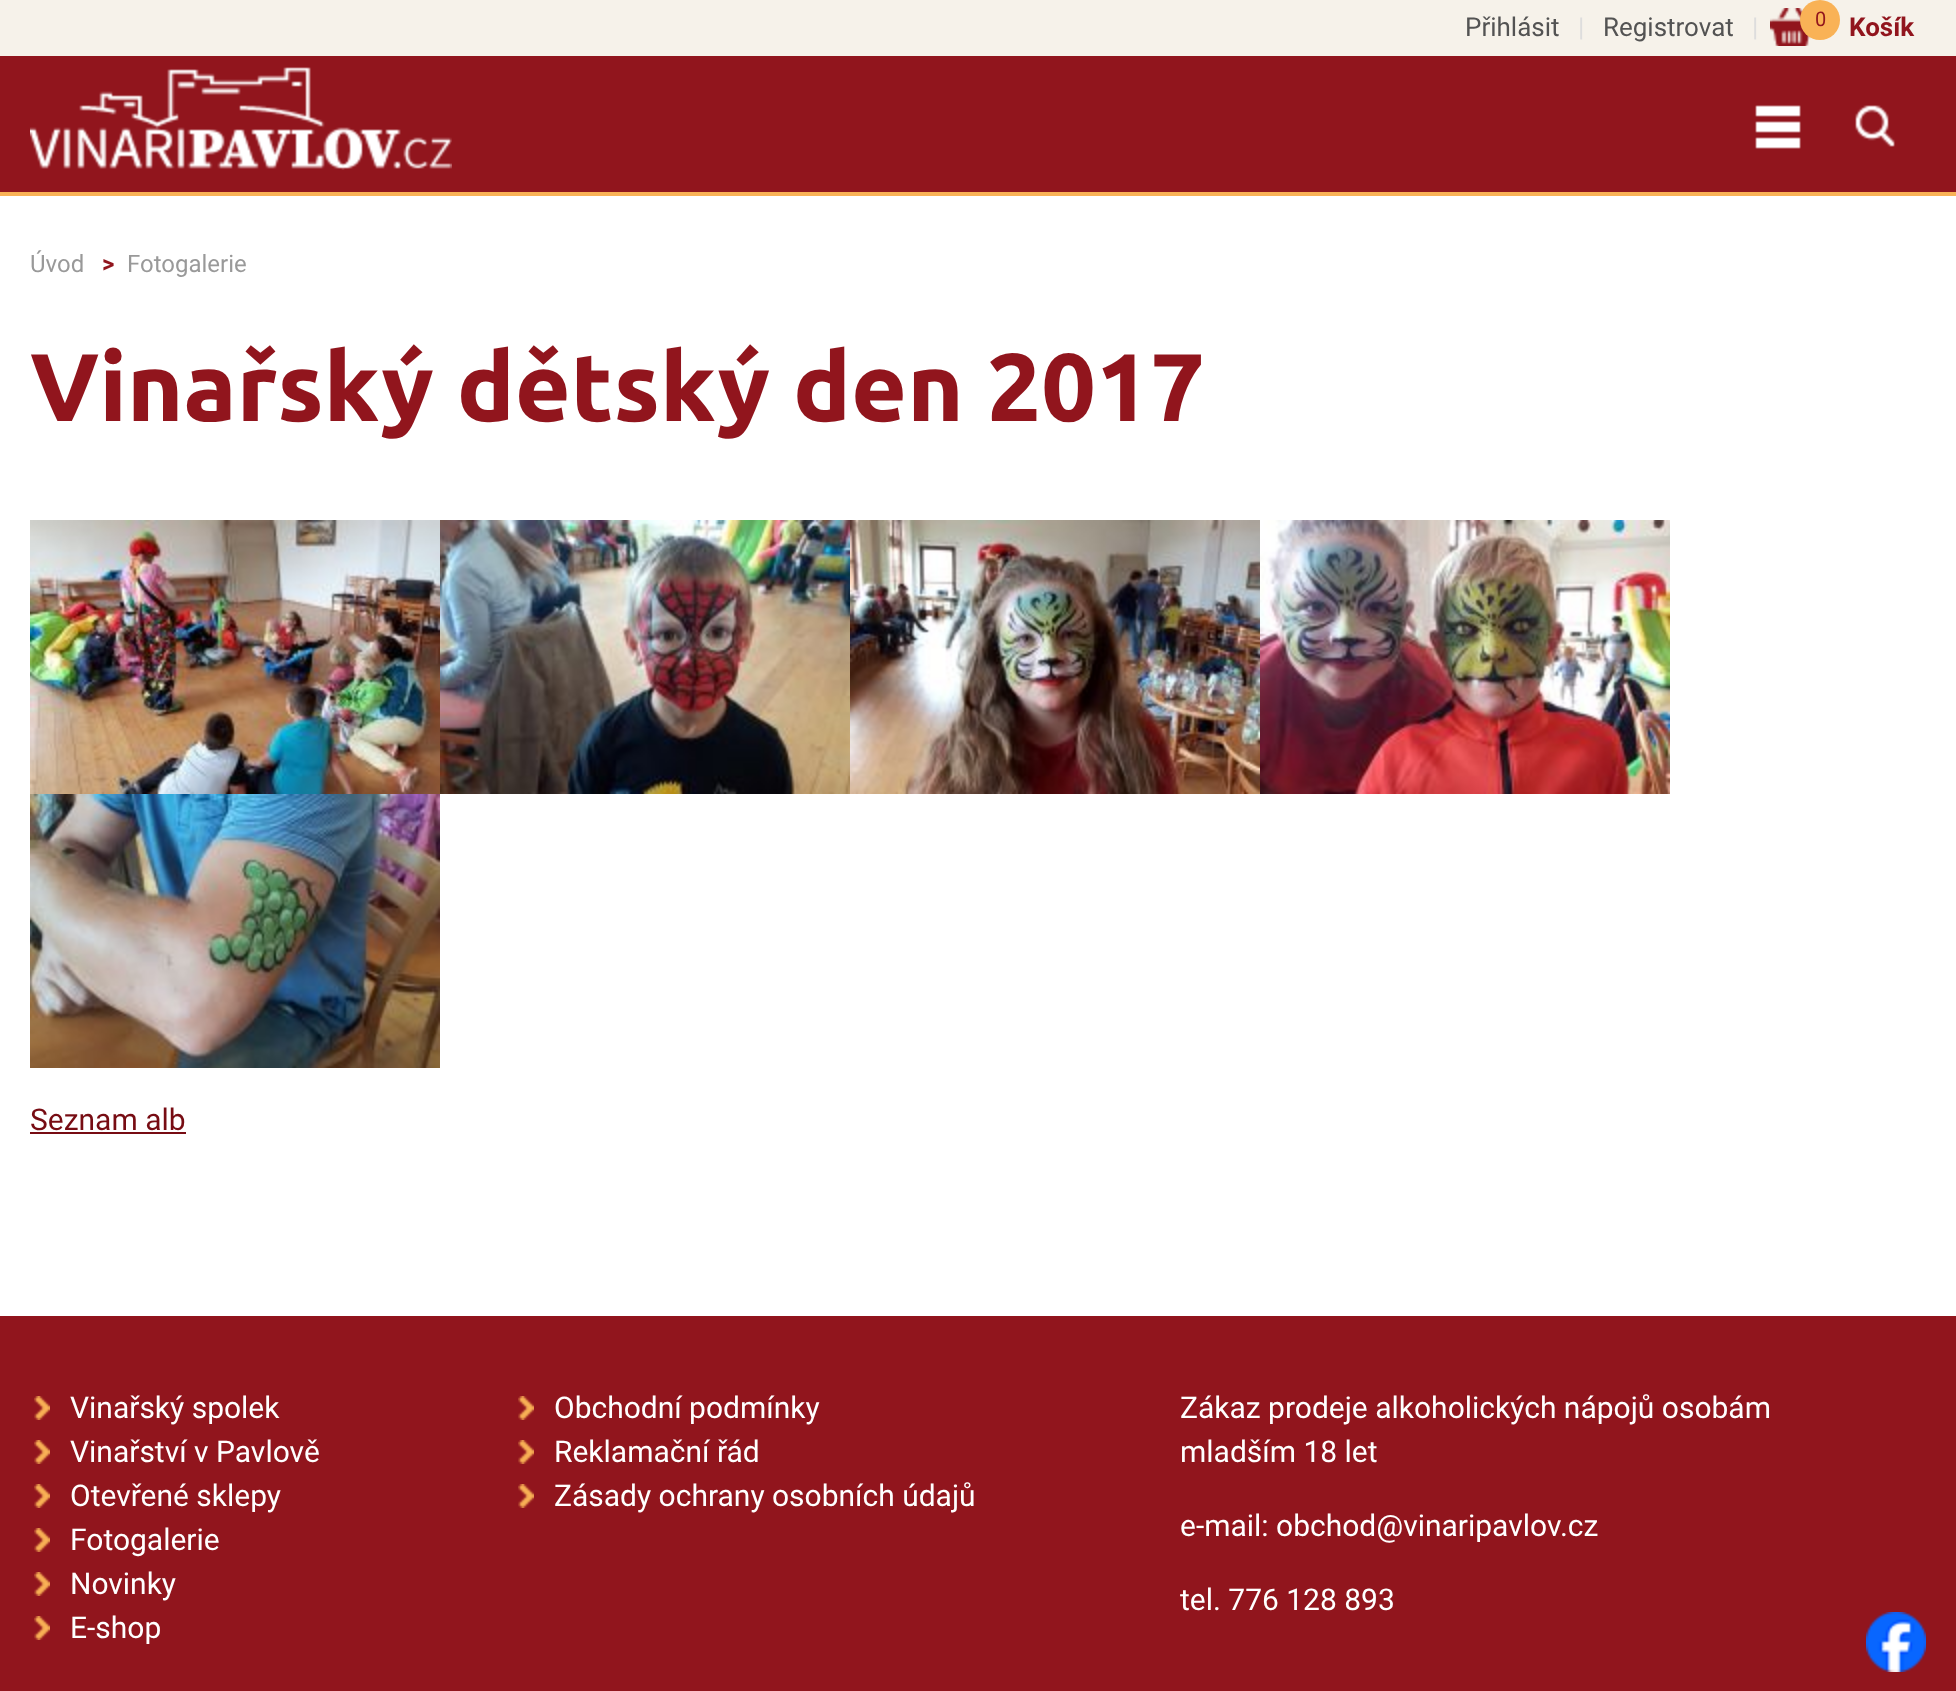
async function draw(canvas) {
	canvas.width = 1956;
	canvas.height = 1691;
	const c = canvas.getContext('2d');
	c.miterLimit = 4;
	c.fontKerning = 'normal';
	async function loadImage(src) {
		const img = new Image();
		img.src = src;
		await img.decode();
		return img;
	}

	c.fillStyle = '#fff';
	c.fillRect(0, 0, 1956, 1691);
	c.fillStyle = '#f6f2ea';
	c.fillRect(0, 0, 1956, 56);
	c.font = '26px Roboto';
	c.fillStyle = '#535353';
	c.fillText('Přihlásit', 1465, 36);
	c.fillStyle = '#ddd';
	c.fillText('|', 1578, 36);
	c.fillStyle = '#535353';
	c.fillText('Registrovat', 1603, 36);
	c.fillStyle = '#ddd';
	c.fillText('|', 1752, 36);
	c.drawImage(await loadImage('img1.png'), 1770, 8, 41, 38);
	c.fillStyle = '#f9b256';
	c.beginPath();
	c.arc(1820, 20, 20, 0, 2 * Math.PI);
	c.fill();
	c.font = '20px Roboto';
	c.fillStyle = '#91151d';
	c.fillText('0', 1815, 26);
	c.font = 'bold 26px Roboto';
	c.fillText('Košík', 1849, 36);
	c.fillRect(0, 56, 1956, 136);
	c.fillStyle = '#f9b256';
	c.fillRect(0, 192, 1956, 4);
	c.drawImage(await loadImage('img2.png'), 30, 67, 422, 103);
	c.drawImage(await loadImage('img3.png'), 1755, 105, 46, 44);
	c.drawImage(await loadImage('img4.png'), 1855, 105, 40, 42);
	c.font = '24px Roboto';
	c.fillStyle = '#999';
	c.fillText('Úvod', 30, 272);
	c.font = 'bold 24px Roboto';
	c.fillStyle = '#91151d';
	c.fillText('>', 102, 272);
	c.font = '24px Roboto';
	c.fillStyle = '#999';
	c.fillText('Fotogalerie', 127, 272);
	c.font = 'bold 96px Ubuntu';
	c.fillStyle = '#91151d';
	c.fillText('Vinařský dětský den 2017', 30, 421);
	c.drawImage(await loadImage('img5.png'), 30, 520, 410, 274);
	c.drawImage(await loadImage('img6.png'), 440, 520, 410, 274);
	c.drawImage(await loadImage('img7.png'), 850, 520, 410, 274);
	c.drawImage(await loadImage('img8.png'), 1260, 520, 410, 274);
	c.drawImage(await loadImage('img9.png'), 30, 794, 410, 274);
	c.font = '30px Roboto';
	c.fillStyle = '#770c13';
	c.fillText('Seznam alb', 30, 1130);
	c.fillRect(30, 1132, 156, 2);
	c.fillStyle = '#91151d';
	c.fillRect(0, 1316, 1956, 375);
	c.drawImage(await loadImage('img10.png'), 34, 1396, 16, 24);
	c.fillStyle = '#fff';
	c.fillText('Vinařský spolek', 70, 1418);
	c.drawImage(await loadImage('img10.png'), 34, 1440, 16, 24);
	c.fillText('Vinařství v Pavlově', 70, 1462);
	c.drawImage(await loadImage('img10.png'), 34, 1484, 16, 24);
	c.fillText('Otevřené sklepy', 70, 1506);
	c.drawImage(await loadImage('img10.png'), 34, 1528, 16, 24);
	c.fillText('Fotogalerie', 70, 1550);
	c.drawImage(await loadImage('img10.png'), 34, 1572, 16, 24);
	c.fillText('Novinky', 70, 1594);
	c.drawImage(await loadImage('img10.png'), 34, 1616, 16, 24);
	c.fillText('E-shop', 70, 1638);
	c.drawImage(await loadImage('img10.png'), 518, 1396, 16, 24);
	c.fillText('Obchodní podmínky', 554, 1418);
	c.drawImage(await loadImage('img10.png'), 518, 1440, 16, 24);
	c.fillText('Reklamační řád', 554, 1462);
	c.drawImage(await loadImage('img10.png'), 518, 1484, 16, 24);
	for (const [text, x, y] of [
		['Zásady ochrany osobních údajů', 554, 1506],
		['Zákaz prodeje alkoholických nápojů osobám', 1180, 1418],
		['mladším 18 let', 1180, 1462],
		['e-mail: obchod@vinaripavlov.cz', 1180, 1536],
		['tel. 776 128 893', 1180, 1610],
	]) {
		c.fillText(text, x, y);
	}
	c.drawImage(await loadImage('img11.png'), 1866, 1612, 60, 60);
}

draw(document.querySelector('canvas'));
